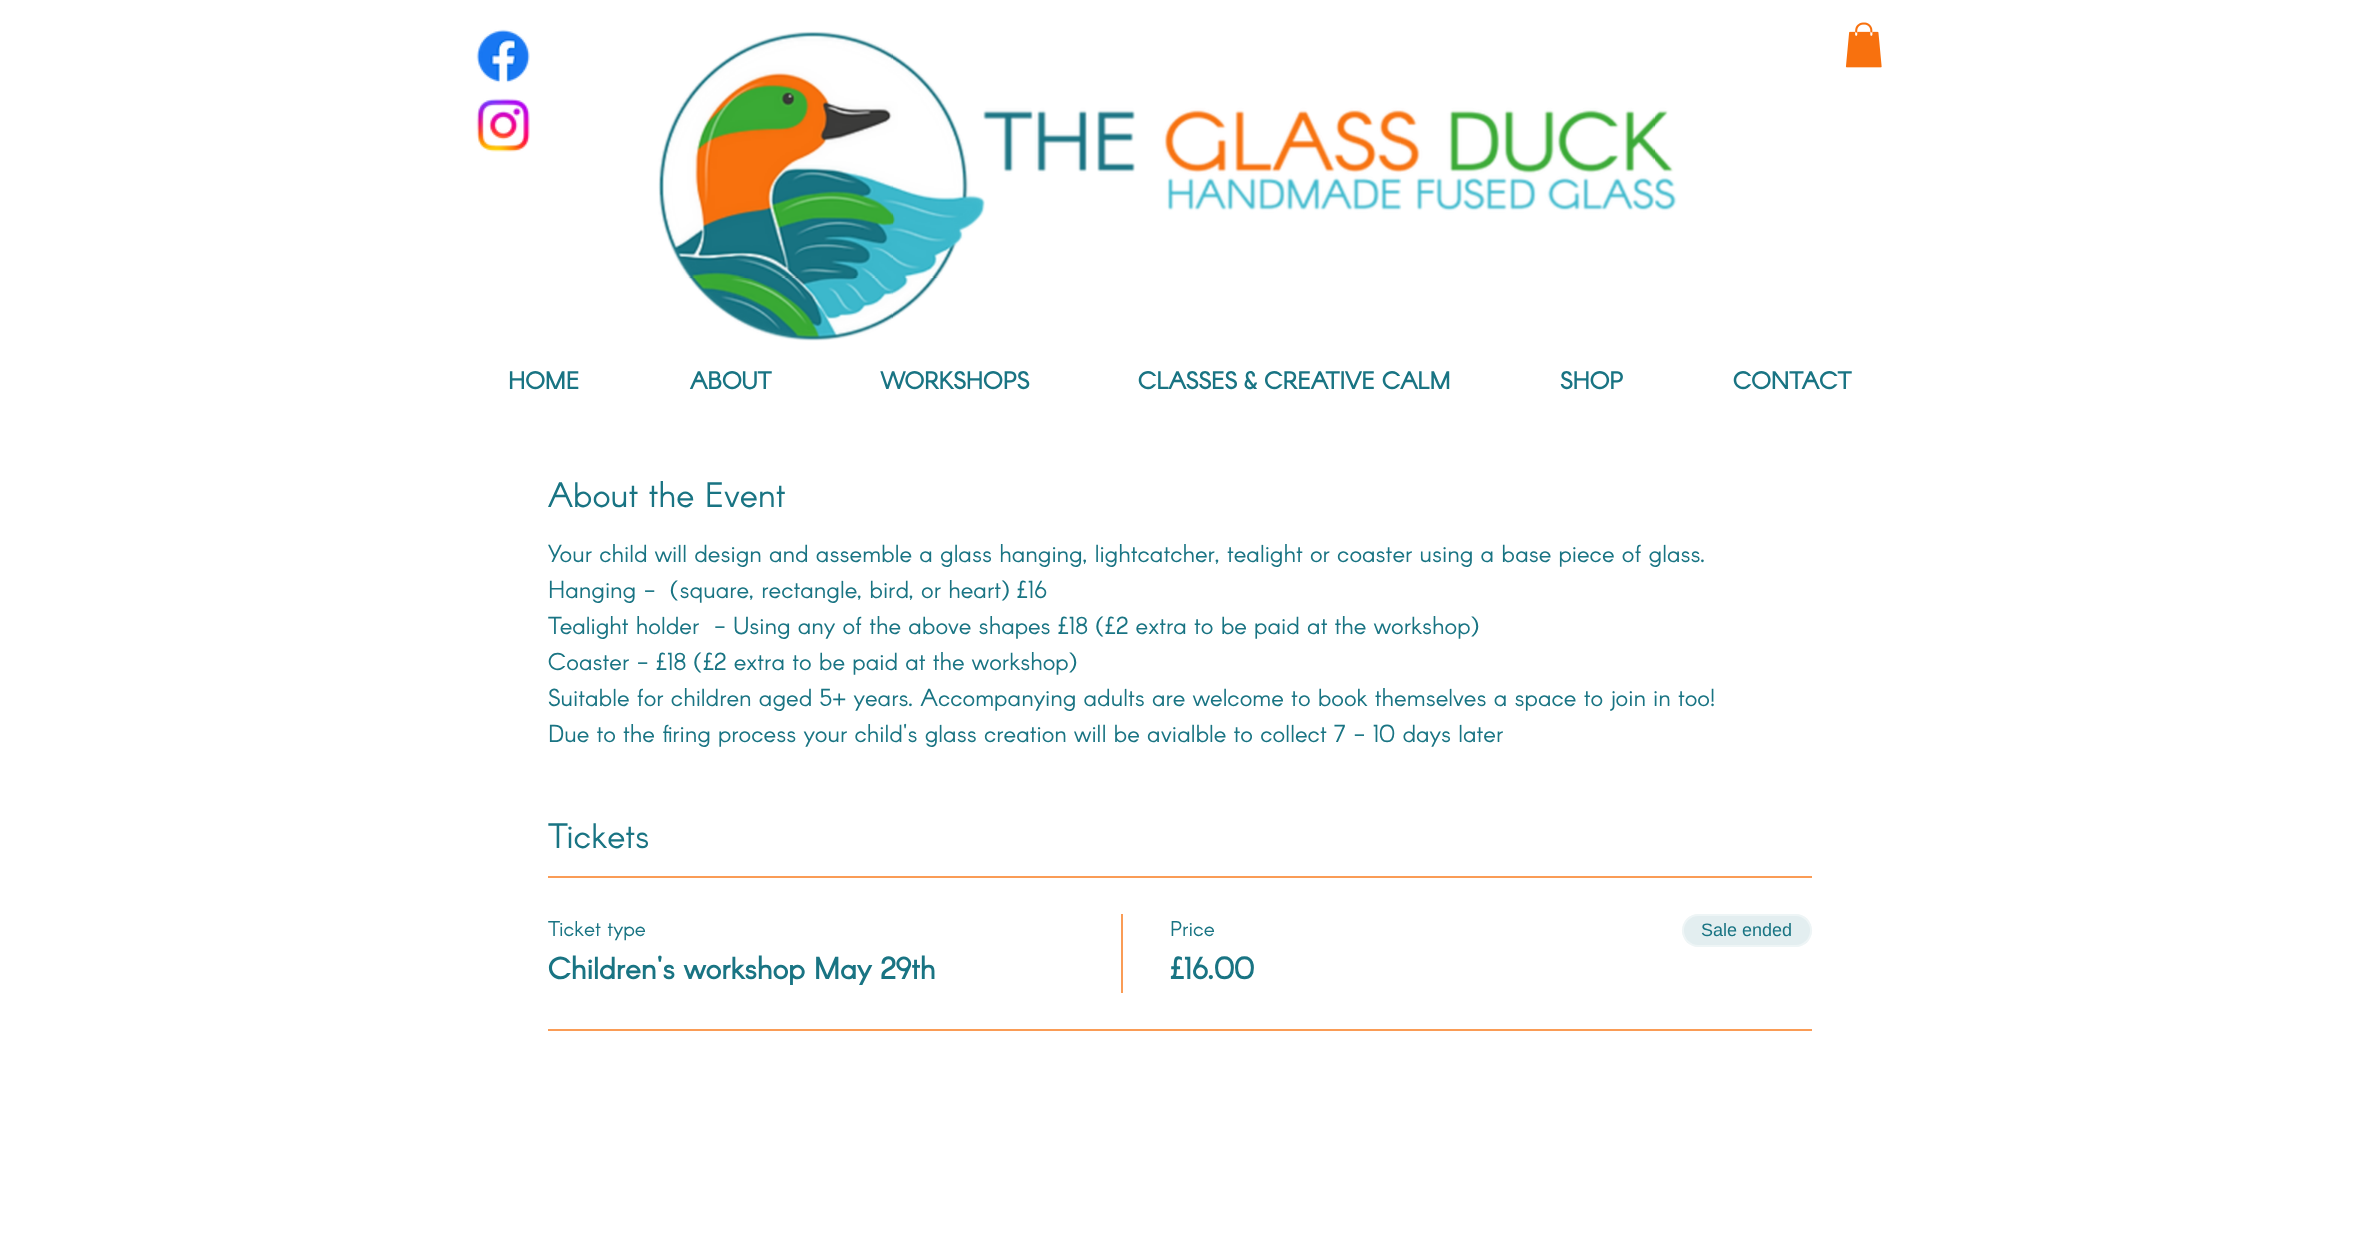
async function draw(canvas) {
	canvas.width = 2359;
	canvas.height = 1243;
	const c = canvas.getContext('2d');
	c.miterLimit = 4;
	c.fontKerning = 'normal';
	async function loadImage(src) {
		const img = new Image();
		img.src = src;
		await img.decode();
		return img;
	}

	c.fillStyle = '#fff';
	c.fillRect(0, 0, 2359, 1243);
	c.drawImage(await loadImage('img1.png'), 476, 29, 54, 54);
	c.drawImage(await loadImage('img2.png'), 476, 98, 54, 54);
	c.drawImage(await loadImage('img3.png'), 658, 31, 1019, 310);
	c.drawImage(await loadImage('img4.png'), 1845, 22, 37, 46);
	c.font = 'bold 24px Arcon';
	c.fillStyle = '#197483';
	for (const [text, x, y] of [
		['HOME', 508, 389],
		['ABOUT', 690, 389],
		['WORKSHOPS', 881, 389],
		['CLASSES & CREATIVE CALM', 1138, 389],
		['SHOP', 1560, 389],
		['CONTACT', 1733, 389],
	]) {
		c.fillText(text, x, y);
	}
	c.font = '34.5px Arcon';
	c.fillText('About the Event', 548, 507);
	c.font = '24px Arcon';
	for (const [text, x, y] of [
		['Your child will design and assemble a glass hanging, lightcatcher, tealight or coaster using a base piece of glass.', 548, 562],
		['Hanging -  (square, rectangle, bird, or heart) £16', 548, 598],
		['Tealight holder  - Using any of the above shapes £18 (£2 extra to be paid at the workshop)', 548, 634],
		['Coaster - £18 (£2 extra to be paid at the workshop)', 548, 670],
		['Suitable for children aged 5+ years. Accompanying adults are welcome to book themselves a space to join in too!', 548, 706],
		['Due to the firing process your child\'s glass creation will be avialble to collect 7 - 10 days later', 548, 742],
	]) {
		c.fillText(text, x, y);
	}
	c.font = '34.5px Arcon';
	c.fillText('Tickets', 548, 848);
	c.fillStyle = '#fa9c56';
	c.fillRect(548, 876, 1264, 2);
	c.fillRect(548, 1029, 1264, 2);
	c.font = '21px Arcon';
	c.fillStyle = '#197483';
	c.fillText('Ticket type', 548, 936);
	c.font = 'bold 30px Arcon';
	c.fillText('Children\'s workshop May 29th', 548, 979);
	c.fillStyle = '#fa9c56';
	c.fillRect(1121, 914, 2, 79);
	c.font = '21px Arcon';
	c.fillStyle = '#197483';
	c.fillText('Price', 1170, 936);
	c.font = 'bold 30px Arcon';
	c.fillText('£16.00', 1170, 979);
	c.fillStyle = '#e3eef0';
	c.beginPath();
	c.roundRect(1682, 914, 130, 33, 16.5);
	c.fill();
	c.beginPath();
	c.roundRect(1683, 915, 128, 31, 15.5);
	c.strokeStyle = '#ffffff66';
	c.lineWidth = 2;
	c.stroke();
	c.font = '18px Liberation Sans';
	c.fillStyle = '#197483';
	c.fillText('Sale ended', 1701, 936);
}

draw(document.querySelector('canvas'));
